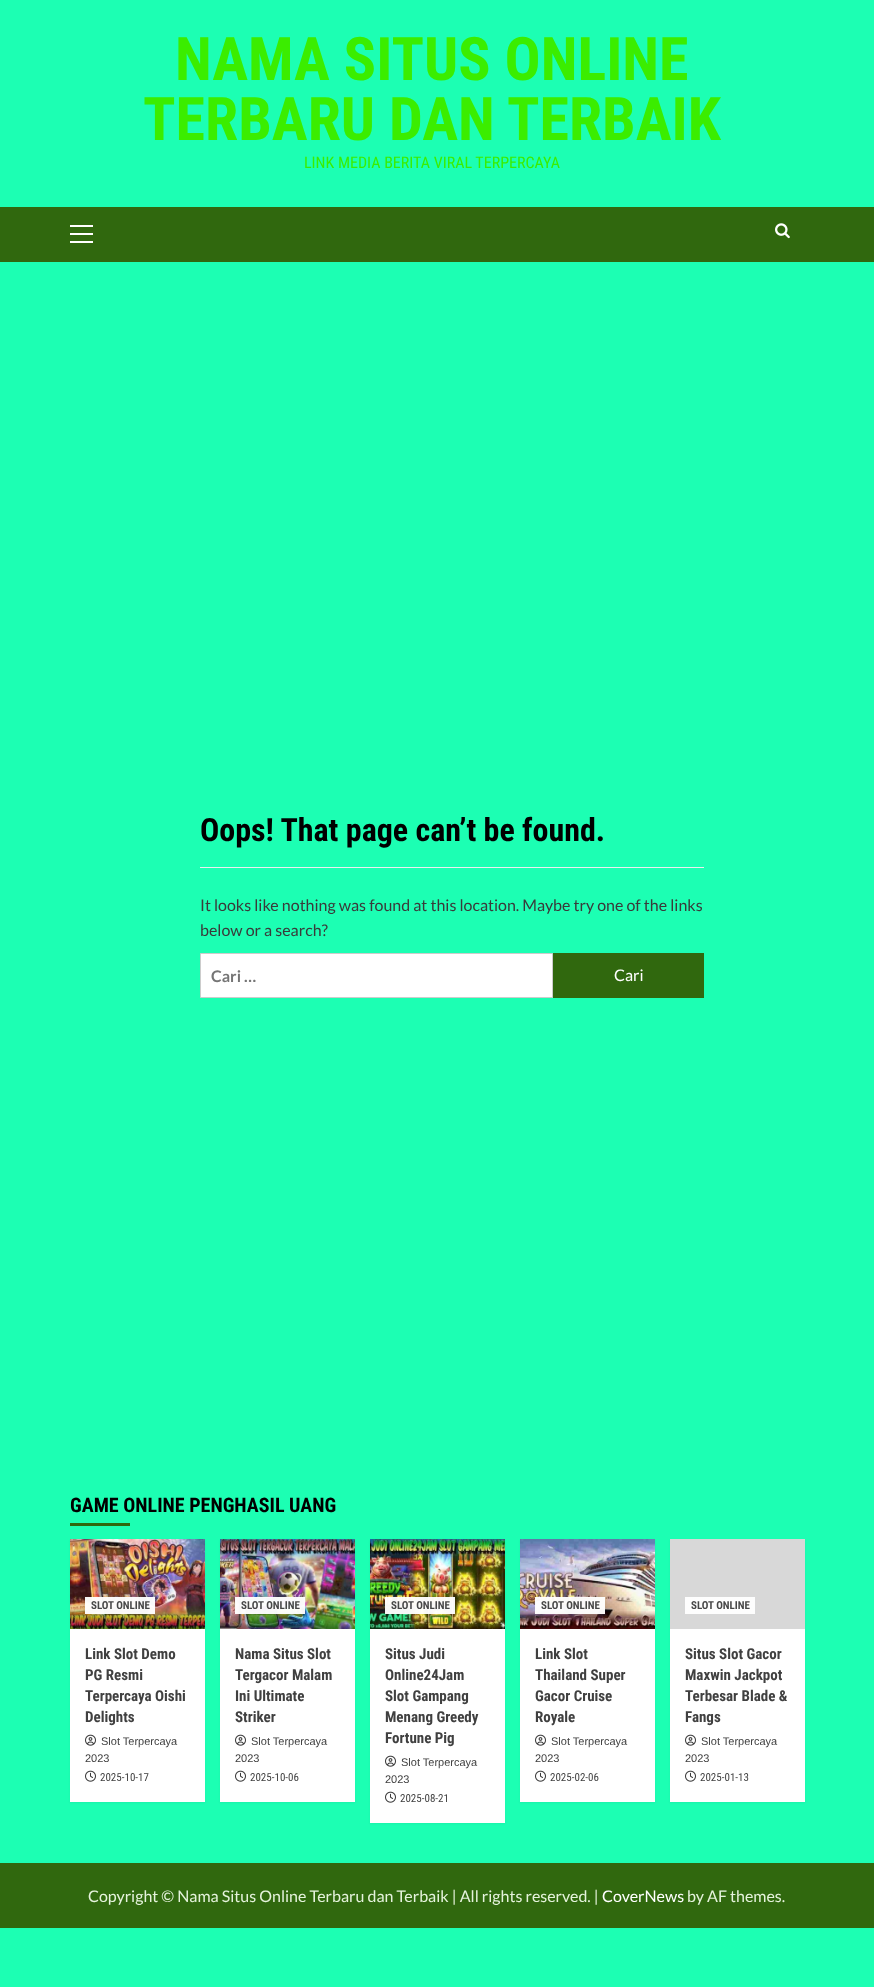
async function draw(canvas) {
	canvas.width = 874;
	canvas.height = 1987;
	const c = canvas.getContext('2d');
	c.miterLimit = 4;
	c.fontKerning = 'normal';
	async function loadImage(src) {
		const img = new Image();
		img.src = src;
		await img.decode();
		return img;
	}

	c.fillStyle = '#1cffb3';
	c.fillRect(0, 0, 874, 1987);
	c.font = 'bold 60px Roboto Condensed';
	c.fillStyle = '#3bed00';
	c.fillText('NAMA SITUS ONLINE', 175, 80);
	c.fillText('TERBARU DAN TERBAIK', 143, 140);
	c.font = '16px Roboto Condensed';
	c.fillText('LINK MEDIA BERITA VIRAL TERPERCAYA', 304, 168);
	for (const [x, y, w, h, color] of [
		[0, 207, 874, 55, '#30680e'],
		[70, 233, 23, 2, '#fff'],
		[70, 225, 23, 2, '#fff'],
		[70, 241, 23, 2, '#fff'],
	]) {
		c.fillStyle = color;
		c.fillRect(x, y, w, h);
	}
	c.drawImage(await loadImage('img1.png'), 775, 223, 15, 16);
	c.fillStyle = '#eee';
	c.fillRect(200, 867, 504, 1);
	c.font = 'bold 32px Roboto Condensed';
	c.fillStyle = '#000';
	c.fillText('Oops! That page can’t be found.', 200, 841);
	c.font = '16px Lato';
	c.fillStyle = '#3a3a3a';
	c.fillText('It looks like nothing was found at this location. Maybe try one of the links', 200, 911);
	c.fillText('below or a search?', 200, 936);
	c.fillStyle = '#fff';
	c.beginPath();
	c.rect(200.5, 953.5, 352, 44);
	c.fill();
	c.strokeStyle = '#ccc';
	c.stroke();
	c.font = 'bold 16px Lato';
	c.fillStyle = '#757575';
	c.fillText('Cari …', 211, 982);
	c.fillStyle = '#30680e';
	c.fillRect(553, 953, 151, 45);
	c.font = '16px Lato';
	c.fillStyle = '#fff';
	c.fillText('Cari', 614, 981);
	c.font = 'bold 20px Roboto Condensed';
	c.fillStyle = '#000';
	c.fillText('GAME ONLINE PENGHASIL UANG', 70, 1512);
	c.fillStyle = '#30680e';
	c.fillRect(70, 1523, 60, 3);
	c.fillStyle = '#0000000d';
	c.filter = 'blur(1px)';
	c.beginPath();
	c.rect(70, 1540, 135, 263);
	c.fill();
	c.filter = 'none';
	c.fillStyle = '#fff';
	c.fillRect(70, 1629, 135, 173);
	c.drawImage(await loadImage('img2.png'), 70, 1539, 135, 90);
	c.fillStyle = '#fffffff5';
	c.fillRect(85, 1597, 70, 17);
	c.font = 'bold 11px Roboto Condensed';
	c.fillStyle = '#474747';
	c.fillText('SLOT ONLINE', 91, 1609);
	c.font = 'bold 15px Roboto Condensed';
	c.fillStyle = '#404040';
	for (const [text, x, y] of [
		['Link Slot Demo', 85, 1659],
		['PG Resmi', 85, 1680],
		['Terpercaya Oishi', 85, 1701],
		['Delights', 85, 1722],
	]) {
		c.fillText(text, x, y);
	}
	c.drawImage(await loadImage('img3.png'), 85, 1734, 11, 12);
	c.font = '11px Liberation Sans';
	c.fillText('Slot Terpercaya', 101, 1745);
	c.fillText('2023', 85, 1762);
	c.drawImage(await loadImage('img4.png'), 85, 1770, 11, 12);
	c.font = '11px Roboto Condensed';
	c.fillText('2025-10-17', 100, 1781);
	c.fillStyle = '#0000000d';
	c.filter = 'blur(1px)';
	c.beginPath();
	c.rect(220, 1540, 135, 263);
	c.fill();
	c.filter = 'none';
	c.fillStyle = '#fff';
	c.fillRect(220, 1629, 135, 173);
	c.drawImage(await loadImage('img5.png'), 220, 1539, 135, 90);
	c.fillStyle = '#fffffff5';
	c.fillRect(235, 1597, 70, 17);
	c.font = 'bold 11px Roboto Condensed';
	c.fillStyle = '#474747';
	c.fillText('SLOT ONLINE', 241, 1609);
	c.font = 'bold 15px Roboto Condensed';
	c.fillStyle = '#404040';
	for (const [text, x, y] of [
		['Nama Situs Slot', 235, 1659],
		['Tergacor Malam', 235, 1680],
		['Ini Ultimate', 235, 1701],
		['Striker', 235, 1722],
	]) {
		c.fillText(text, x, y);
	}
	c.drawImage(await loadImage('img3.png'), 235, 1734, 11, 12);
	c.font = '11px Liberation Sans';
	c.fillText('Slot Terpercaya', 251, 1745);
	c.fillText('2023', 235, 1762);
	c.drawImage(await loadImage('img4.png'), 235, 1770, 11, 12);
	c.font = '11px Roboto Condensed';
	c.fillText('2025-10-06', 250, 1781);
	c.fillStyle = '#0000000d';
	c.filter = 'blur(1px)';
	c.beginPath();
	c.rect(370, 1540, 135, 284);
	c.fill();
	c.filter = 'none';
	c.fillStyle = '#fff';
	c.fillRect(370, 1629, 135, 194);
	c.drawImage(await loadImage('img6.png'), 370, 1539, 135, 90);
	c.fillStyle = '#fffffff5';
	c.fillRect(385, 1597, 70, 17);
	c.font = 'bold 11px Roboto Condensed';
	c.fillStyle = '#474747';
	c.fillText('SLOT ONLINE', 391, 1609);
	c.font = 'bold 15px Roboto Condensed';
	c.fillStyle = '#404040';
	for (const [text, x, y] of [
		['Situs Judi', 385, 1659],
		['Online24Jam', 385, 1680],
		['Slot Gampang', 385, 1701],
		['Menang Greedy', 385, 1722],
		['Fortune Pig', 385, 1743],
	]) {
		c.fillText(text, x, y);
	}
	c.drawImage(await loadImage('img3.png'), 385, 1755, 11, 12);
	c.font = '11px Liberation Sans';
	c.fillText('Slot Terpercaya', 401, 1766);
	c.fillText('2023', 385, 1783);
	c.drawImage(await loadImage('img4.png'), 385, 1791, 11, 12);
	c.font = '11px Roboto Condensed';
	c.fillText('2025-08-21', 400, 1802);
	c.fillStyle = '#0000000d';
	c.filter = 'blur(1px)';
	c.beginPath();
	c.rect(520, 1540, 135, 263);
	c.fill();
	c.filter = 'none';
	c.fillStyle = '#fff';
	c.fillRect(520, 1629, 135, 173);
	c.drawImage(await loadImage('img7.png'), 520, 1539, 135, 90);
	c.fillStyle = '#fffffff5';
	c.fillRect(535, 1597, 70, 17);
	c.font = 'bold 11px Roboto Condensed';
	c.fillStyle = '#474747';
	c.fillText('SLOT ONLINE', 541, 1609);
	c.font = 'bold 15px Roboto Condensed';
	c.fillStyle = '#404040';
	for (const [text, x, y] of [
		['Link Slot', 535, 1659],
		['Thailand Super', 535, 1680],
		['Gacor Cruise', 535, 1701],
		['Royale', 535, 1722],
	]) {
		c.fillText(text, x, y);
	}
	c.drawImage(await loadImage('img3.png'), 535, 1734, 11, 12);
	c.font = '11px Liberation Sans';
	c.fillText('Slot Terpercaya', 551, 1745);
	c.fillText('2023', 535, 1762);
	c.drawImage(await loadImage('img4.png'), 535, 1770, 11, 12);
	c.font = '11px Roboto Condensed';
	c.fillText('2025-02-06', 550, 1781);
	c.fillStyle = '#0000000d';
	c.filter = 'blur(1px)';
	c.beginPath();
	c.rect(670, 1540, 135, 263);
	c.fill();
	c.filter = 'none';
	for (const [x, y, w, h, color] of [
		[670, 1629, 135, 173, '#fff'],
		[670, 1539, 135, 90, '#d8d8d8'],
		[685, 1597, 70, 17, '#fdfdfd'],
	]) {
		c.fillStyle = color;
		c.fillRect(x, y, w, h);
	}
	c.font = 'bold 11px Roboto Condensed';
	c.fillStyle = '#474747';
	c.fillText('SLOT ONLINE', 691, 1609);
	c.font = 'bold 15px Roboto Condensed';
	c.fillStyle = '#404040';
	for (const [text, x, y] of [
		['Situs Slot Gacor', 685, 1659],
		['Maxwin Jackpot', 685, 1680],
		['Terbesar Blade &', 685, 1701],
		['Fangs', 685, 1722],
	]) {
		c.fillText(text, x, y);
	}
	c.drawImage(await loadImage('img3.png'), 685, 1734, 11, 12);
	c.font = '11px Liberation Sans';
	c.fillText('Slot Terpercaya', 701, 1745);
	c.fillText('2023', 685, 1762);
	c.drawImage(await loadImage('img4.png'), 685, 1770, 11, 12);
	c.font = '11px Roboto Condensed';
	c.fillText('2025-01-13', 700, 1781);
	c.fillStyle = '#30680e';
	c.fillRect(0, 1863, 874, 65);
	c.font = '16px Lato';
	c.fillStyle = '#e5f3dc';
	c.fillText('Copyright © Nama Situs Online Terbaru dan Terbaik | All rights reserved. |', 88, 1902);
	c.fillStyle = '#fff';
	c.fillText('CoverNews', 602, 1902);
	c.fillStyle = '#e5f3dc';
	c.fillText('by AF themes.', 687, 1902);
}

draw(document.querySelector('canvas'));
